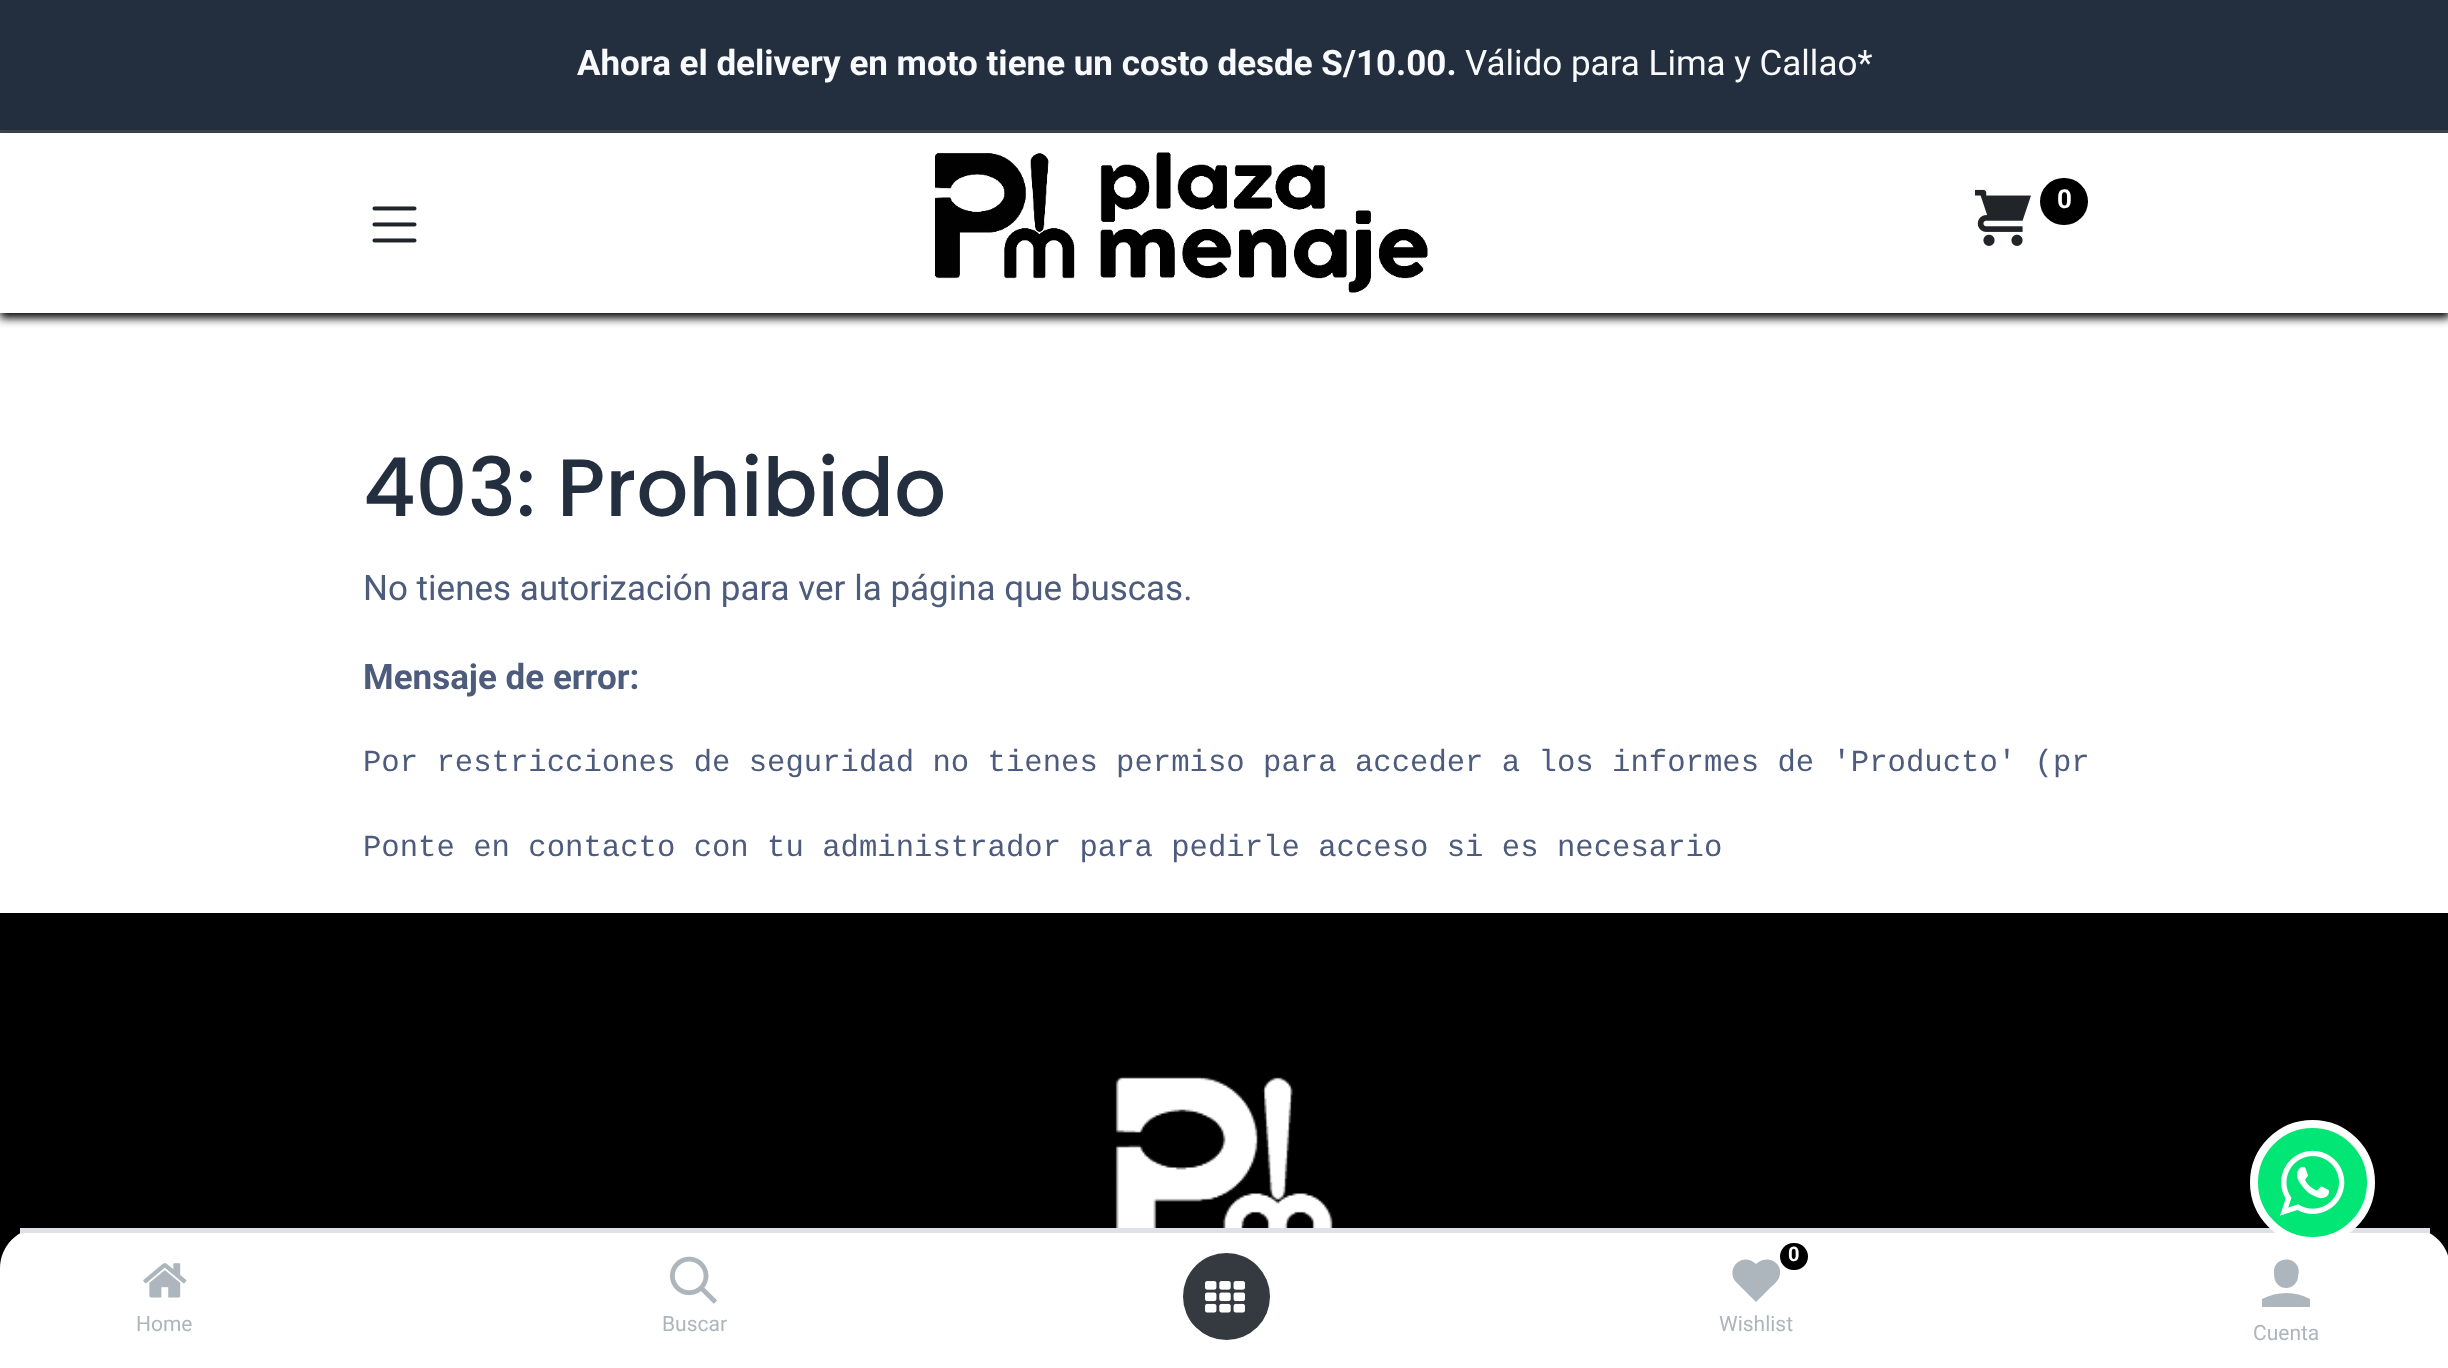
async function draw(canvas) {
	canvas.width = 2448;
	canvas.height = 1368;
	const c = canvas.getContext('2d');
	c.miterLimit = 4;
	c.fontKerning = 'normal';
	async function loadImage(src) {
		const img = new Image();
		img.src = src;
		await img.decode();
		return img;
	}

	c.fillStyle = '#fff';
	c.fillRect(0, 0, 2448, 1368);
	c.fillStyle = '#232f3e';
	c.fillRect(0, 0, 2448, 130);
	c.fillStyle = '#3d4855';
	c.fillRect(0, 130, 2448, 3);
	c.font = 'bold 35px Roboto';
	c.fillStyle = '#f9fafe';
	c.fillText('Ahora el delivery en moto tiene un costo desde S/10.00.', 577, 75);
	c.font = '35px Roboto';
	c.fillText('Válido para Lima y Callao*', 1465, 75);
	c.fillStyle = '#000';
	c.filter = 'blur(5px)';
	c.beginPath();
	c.rect(0, 138, 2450, 180);
	c.fill();
	c.filter = 'none';
	c.fillStyle = '#fff';
	c.fillRect(0, 133, 2448, 180);
	c.drawImage(await loadImage('img1.png'), 935, 152, 493, 141);
	c.drawImage(await loadImage('img2.png'), 1975, 189, 56, 57);
	c.fillStyle = '#000';
	c.beginPath();
	c.roundRect(2040, 178, 48, 47, 23.5);
	c.fill();
	c.font = 'bold 26px Roboto';
	c.fillStyle = '#fff';
	c.fillText('0', 2057, 208);
	c.drawImage(await loadImage('img3.png'), 372, 206, 45, 37);
	c.font = '500 81.25px Poppins';
	c.fillStyle = '#232f3e';
	c.fillText('403: Prohibido', 363, 516);
	c.font = '35px Roboto';
	c.fillStyle = '#4d5b7c';
	c.fillText('No tienes autorización para ver la página que buscas.', 363, 600);
	c.font = 'bold 35px Roboto';
	c.fillText('Mensaje de error:', 363, 689);
	c.font = '30.62px Liberation Mono';
	c.fillText('Por restricciones de seguridad no tienes permiso para acceder a los informes de \'Producto\' (pr', 363, 771);
	c.fillText('Ponte en contacto con tu administrador para pedirle acceso si es necesario', 363, 856);
	c.fillStyle = '#000';
	c.fillRect(0, 913, 2448, 355);
	c.drawImage(await loadImage('img4.png'), 1115, 1076, 218, 152);
	c.fillStyle = '#fff';
	c.beginPath();
	c.moveTo(40, 1228);
	c.lineTo(2410, 1228);
	c.bezierCurveTo(2432, 1228, 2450, 1246, 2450, 1268);
	c.lineTo(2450, 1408);
	c.lineTo(0, 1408);
	c.lineTo(0, 1268);
	c.bezierCurveTo(0, 1246, 18, 1228, 40, 1228);
	c.closePath();
	c.fill();
	c.fillStyle = '#dee2e6';
	c.fillRect(20, 1228, 2410, 5);
	c.drawImage(await loadImage('img5.png'), 143, 1263, 44, 35);
	c.font = '21px Roboto';
	c.fillStyle = '#adb5bd';
	c.fillText('Home', 136, 1331);
	c.drawImage(await loadImage('img6.png'), 670, 1256, 47, 48);
	c.fillText('Buscar', 662, 1331);
	c.fillStyle = '#343a40';
	c.beginPath();
	c.arc(1226.5, 1296.5, 43.5, 0, 2 * Math.PI);
	c.fill();
	c.drawImage(await loadImage('img7.png'), 1205, 1281, 40, 32);
	c.fillStyle = '#adb5bd';
	c.beginPath();
	c.moveTo(1756, 1264);
	c.bezierCurveTo(1742, 1251, 1725, 1269, 1736, 1282);
	c.lineTo(1756, 1302);
	c.lineTo(1770, 1288);
	c.bezierCurveTo(1773, 1285, 1777, 1282, 1779, 1278);
	c.bezierCurveTo(1785, 1264, 1768, 1253, 1756, 1264);
	c.closePath();
	c.fill();
	c.fillStyle = '#000';
	c.beginPath();
	c.roundRect(1780, 1243, 28, 27, 13.5);
	c.fill();
	c.font = 'bold 20px Roboto';
	c.fillStyle = '#fff';
	c.fillText('0', 1788, 1261);
	c.font = '21px Roboto';
	c.fillStyle = '#adb5bd';
	c.fillText('Wishlist', 1719, 1331);
	c.beginPath();
	c.moveTo(2274, 1271);
	c.bezierCurveTo(2274, 1258, 2293, 1255, 2298, 1267);
	c.bezierCurveTo(2299, 1270, 2299, 1273, 2298, 1276);
	c.bezierCurveTo(2298, 1289, 2280, 1293, 2275, 1280);
	c.bezierCurveTo(2274, 1277, 2274, 1274, 2274, 1271);
	c.closePath();
	c.moveTo(2262, 1299);
	c.bezierCurveTo(2277, 1291, 2296, 1291, 2310, 1299);
	c.lineTo(2310, 1307);
	c.lineTo(2262, 1307);
	c.closePath();
	c.fill();
	c.fillText('Cuenta', 2253, 1340);
	c.fillStyle = '#01e675';
	c.beginPath();
	c.arc(2312.5, 1182.5, 58.5, 0, 2 * Math.PI);
	c.fill();
	c.strokeStyle = '#fff';
	c.lineWidth = 8;
	c.stroke();
	c.drawImage(await loadImage('img8.png'), 2280, 1150, 65, 66);
}

draw(document.querySelector('canvas'));
